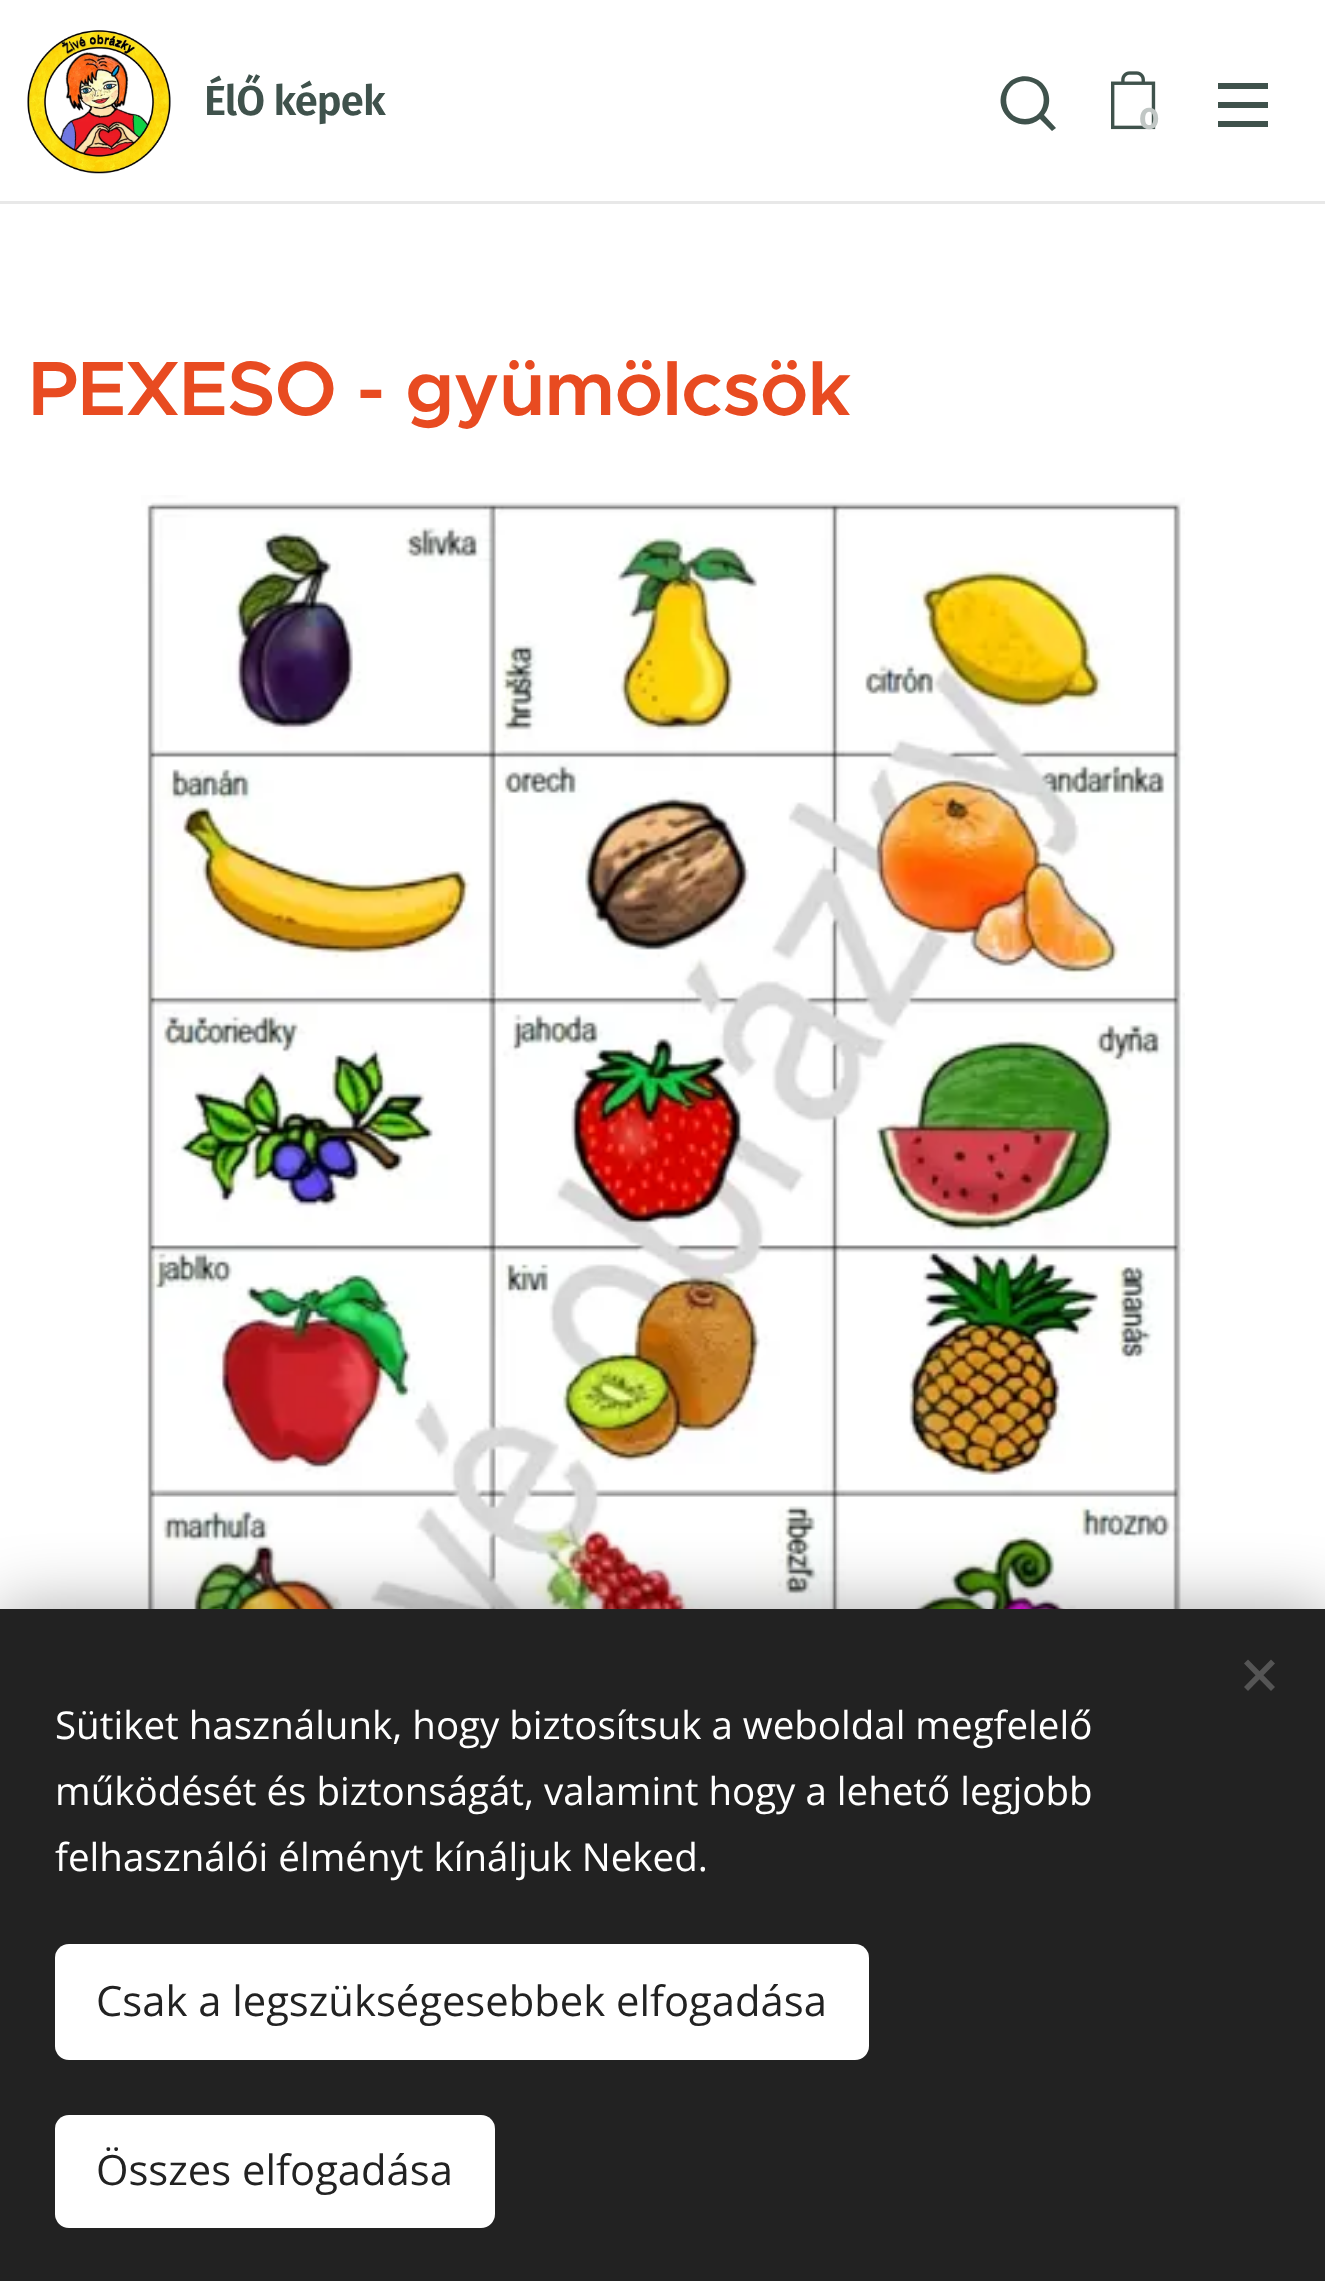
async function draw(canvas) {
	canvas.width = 1325;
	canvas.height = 2281;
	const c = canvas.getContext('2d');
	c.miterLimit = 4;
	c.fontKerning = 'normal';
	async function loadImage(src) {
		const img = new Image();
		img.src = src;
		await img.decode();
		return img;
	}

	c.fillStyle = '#fff';
	c.fillRect(0, 0, 1325, 2281);
	c.drawImage(await loadImage('img1.png'), 27, 30, 144, 144);
	c.letterSpacing = '-0.9px';
	c.font = '600 41.75px Fira Sans';
	c.fillStyle = '#3f524c';
	c.fillText('ÉlŐ képek', 204, 115);
	c.beginPath();
	c.moveTo(1056, 128);
	c.lineTo(1044, 115);
	c.bezierCurveTo(1053, 104, 1050, 87, 1038, 80);
	c.bezierCurveTo(1031, 76, 1023, 75, 1016, 78);
	c.bezierCurveTo(1010, 80, 1006, 85, 1003, 90);
	c.bezierCurveTo(992, 113, 1020, 135, 1040, 119);
	c.lineTo(1052, 131);
	c.closePath();
	c.moveTo(1025, 119);
	c.bezierCurveTo(1000, 119, 1000, 81, 1025, 81);
	c.bezierCurveTo(1050, 81, 1050, 119, 1025, 119);
	c.closePath();
	c.fill();
	c.drawImage(await loadImage('img2.png'), 1111, 71, 45, 59);
	c.letterSpacing = '0px';
	c.font = 'bold 30px Montserrat';
	c.fillStyle = '#c1c7c5';
	c.fillText('0', 1139, 129);
	for (const [x, y, w, h, color] of [
		[1218, 102, 50, 6, '#3f524c'],
		[1218, 83, 50, 6, '#3f524c'],
		[1218, 121, 50, 6, '#3f524c'],
		[0, 201, 1325, 3, '#e8e8e8'],
	]) {
		c.fillStyle = color;
		c.fillRect(x, y, w, h);
	}
	c.letterSpacing = '-0.9px';
	c.font = '600 77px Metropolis';
	c.fillStyle = '#e84b21';
	c.fillText('PEXESO - gyümölcsök', 28, 415);
	c.drawImage(await loadImage('img3.png'), 141, 495, 1044, 1114);
	c.fillStyle = '#00000054';
	c.filter = 'blur(34.5px)';
	c.beginPath();
	c.rect(0, 1609, 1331, 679);
	c.fill();
	c.filter = 'none';
	c.fillStyle = '#222';
	c.fillRect(0, 1609, 1325, 672);
	c.fillStyle = '#555';
	c.beginPath();
	c.moveTo(1244, 1687);
	c.lineTo(1271, 1659.5);
	c.lineTo(1275, 1663.5);
	c.lineTo(1248, 1691);
	c.closePath();
	c.fill();
	c.beginPath();
	c.moveTo(1248, 1659.5);
	c.lineTo(1275, 1687);
	c.lineTo(1271, 1691);
	c.lineTo(1244, 1663.5);
	c.closePath();
	c.fill();
	c.letterSpacing = '0px';
	c.font = '38.5px Open Sans';
	c.fillStyle = '#fff';
	for (const [text, x, y] of [
		['Sütiket használunk, hogy biztosítsuk a weboldal megfelelő', 55, 1739],
		['működését és biztonságát, valamint hogy a lehető legjobb', 55, 1805],
		['felhasználói élményt kínáljuk Neked.', 55, 1871],
	]) {
		c.fillText(text, x, y);
	}
	c.beginPath();
	c.roundRect(55, 1944, 814, 116, 14);
	c.fill();
	c.font = '41.75px Open Sans';
	c.fillStyle = '#222';
	c.fillText('Csak a legszükségesebbek elfogadása', 96, 2016);
	c.fillStyle = '#fff';
	c.beginPath();
	c.roundRect(55, 2115, 440, 113, 14);
	c.fill();
	c.fillStyle = '#222';
	c.fillText('Összes elfogadása', 96, 2185);
}

draw(document.querySelector('canvas'));
